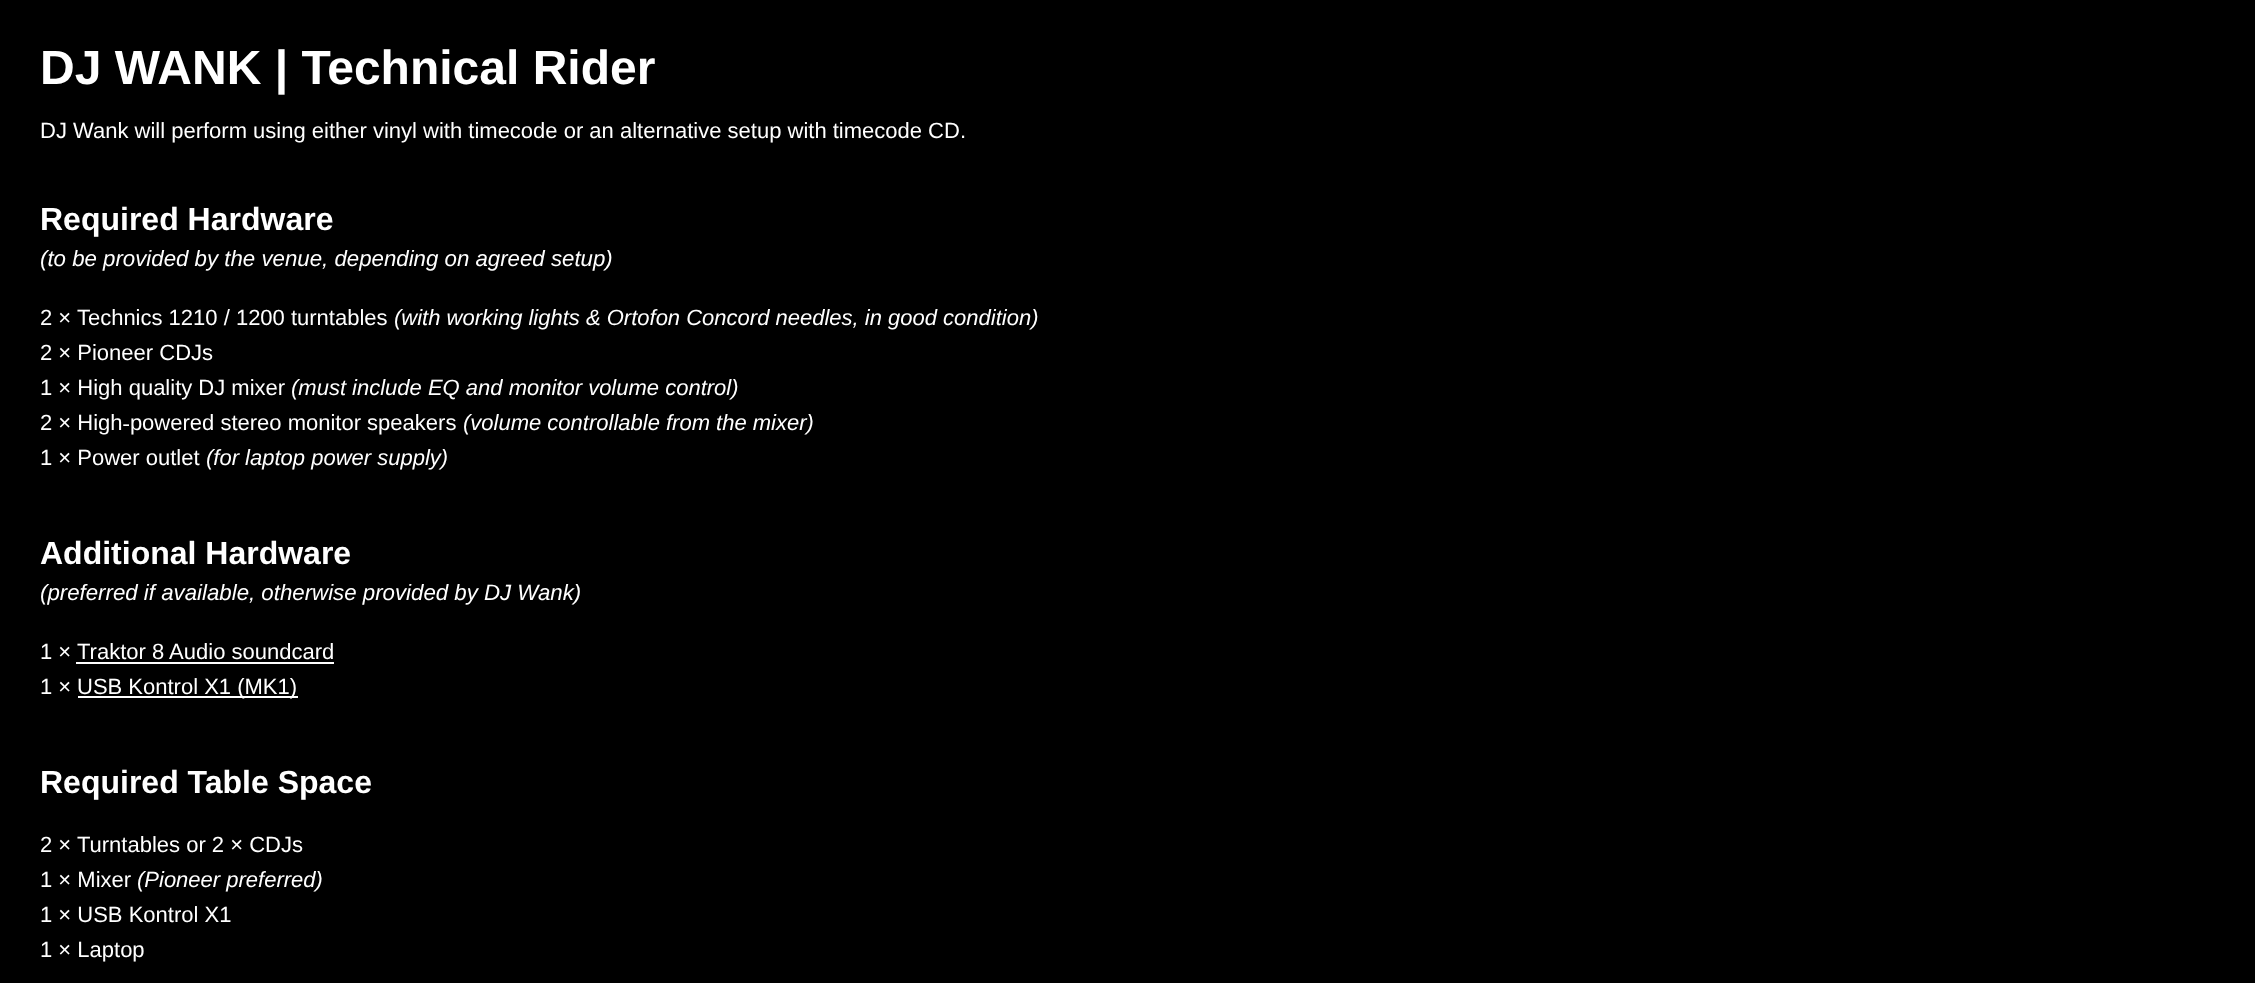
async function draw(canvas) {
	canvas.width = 2255;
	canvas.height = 983;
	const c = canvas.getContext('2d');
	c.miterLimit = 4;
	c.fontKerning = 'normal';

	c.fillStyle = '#000';
	c.fillRect(0, 0, 2255, 983);
	c.font = 'bold 48px Liberation Sans';
	c.fillStyle = '#fff';
	c.fillText('DJ WANK | Technical Rider', 40, 84);
	c.font = '22px Liberation Sans';
	c.fillText('DJ Wank will perform using either vinyl with timecode or an alternative setup with timecode CD.', 40, 138);
	c.font = 'bold 32px Liberation Sans';
	c.fillText('Required Hardware', 40, 230);
	c.font = 'italic 22.25px Liberation Sans';
	c.fillText('(to be provided by the venue, depending on agreed setup)', 40, 266);
	c.font = '22px Liberation Sans';
	c.fillText('2 × Technics 1210 / 1200 turntables', 40, 325);
	c.font = 'italic 22px Liberation Sans';
	c.fillText('(with working lights & Ortofon Concord needles, in good condition)', 394, 325);
	c.font = '22px Liberation Sans';
	c.fillText('2 × Pioneer CDJs', 40, 360);
	c.fillText('1 × High quality DJ mixer', 40, 395);
	c.font = 'italic 22px Liberation Sans';
	c.fillText('(must include EQ and monitor volume control)', 291, 395);
	c.font = '22px Liberation Sans';
	c.fillText('2 × High‑powered stereo monitor speakers', 40, 430);
	c.font = 'italic 22px Liberation Sans';
	c.fillText('(volume controllable from the mixer)', 463, 430);
	c.font = '22px Liberation Sans';
	c.fillText('1 × Power outlet', 40, 465);
	c.font = 'italic 22px Liberation Sans';
	c.fillText('(for laptop power supply)', 206, 465);
	c.font = 'bold 32px Liberation Sans';
	c.fillText('Additional Hardware', 40, 564);
	c.font = 'italic 22.25px Liberation Sans';
	c.fillText('(preferred if available, otherwise provided by DJ Wank)', 40, 600);
	c.font = '22px Liberation Sans';
	c.fillText('1 ×', 40, 659);
	c.fillText('Traktor 8 Audio soundcard', 77, 659);
	c.fillRect(76, 662, 258, 2);
	c.fillText('1 ×', 40, 694);
	c.fillRect(78, 696, 220, 2);
	c.fillText('USB Kontrol X1 (MK1)', 77, 694);
	c.font = 'bold 32px Liberation Sans';
	c.fillText('Required Table Space', 40, 793);
	c.font = '22px Liberation Sans';
	c.fillText('2 × Turntables or 2 × CDJs', 40, 852);
	c.fillText('1 × Mixer', 40, 887);
	c.font = 'italic 22px Liberation Sans';
	c.fillText('(Pioneer preferred)', 137, 887);
	c.font = '22px Liberation Sans';
	c.fillText('1 × USB Kontrol X1', 40, 922);
	c.fillText('1 × Laptop', 40, 957);
}

draw(document.querySelector('canvas'));
